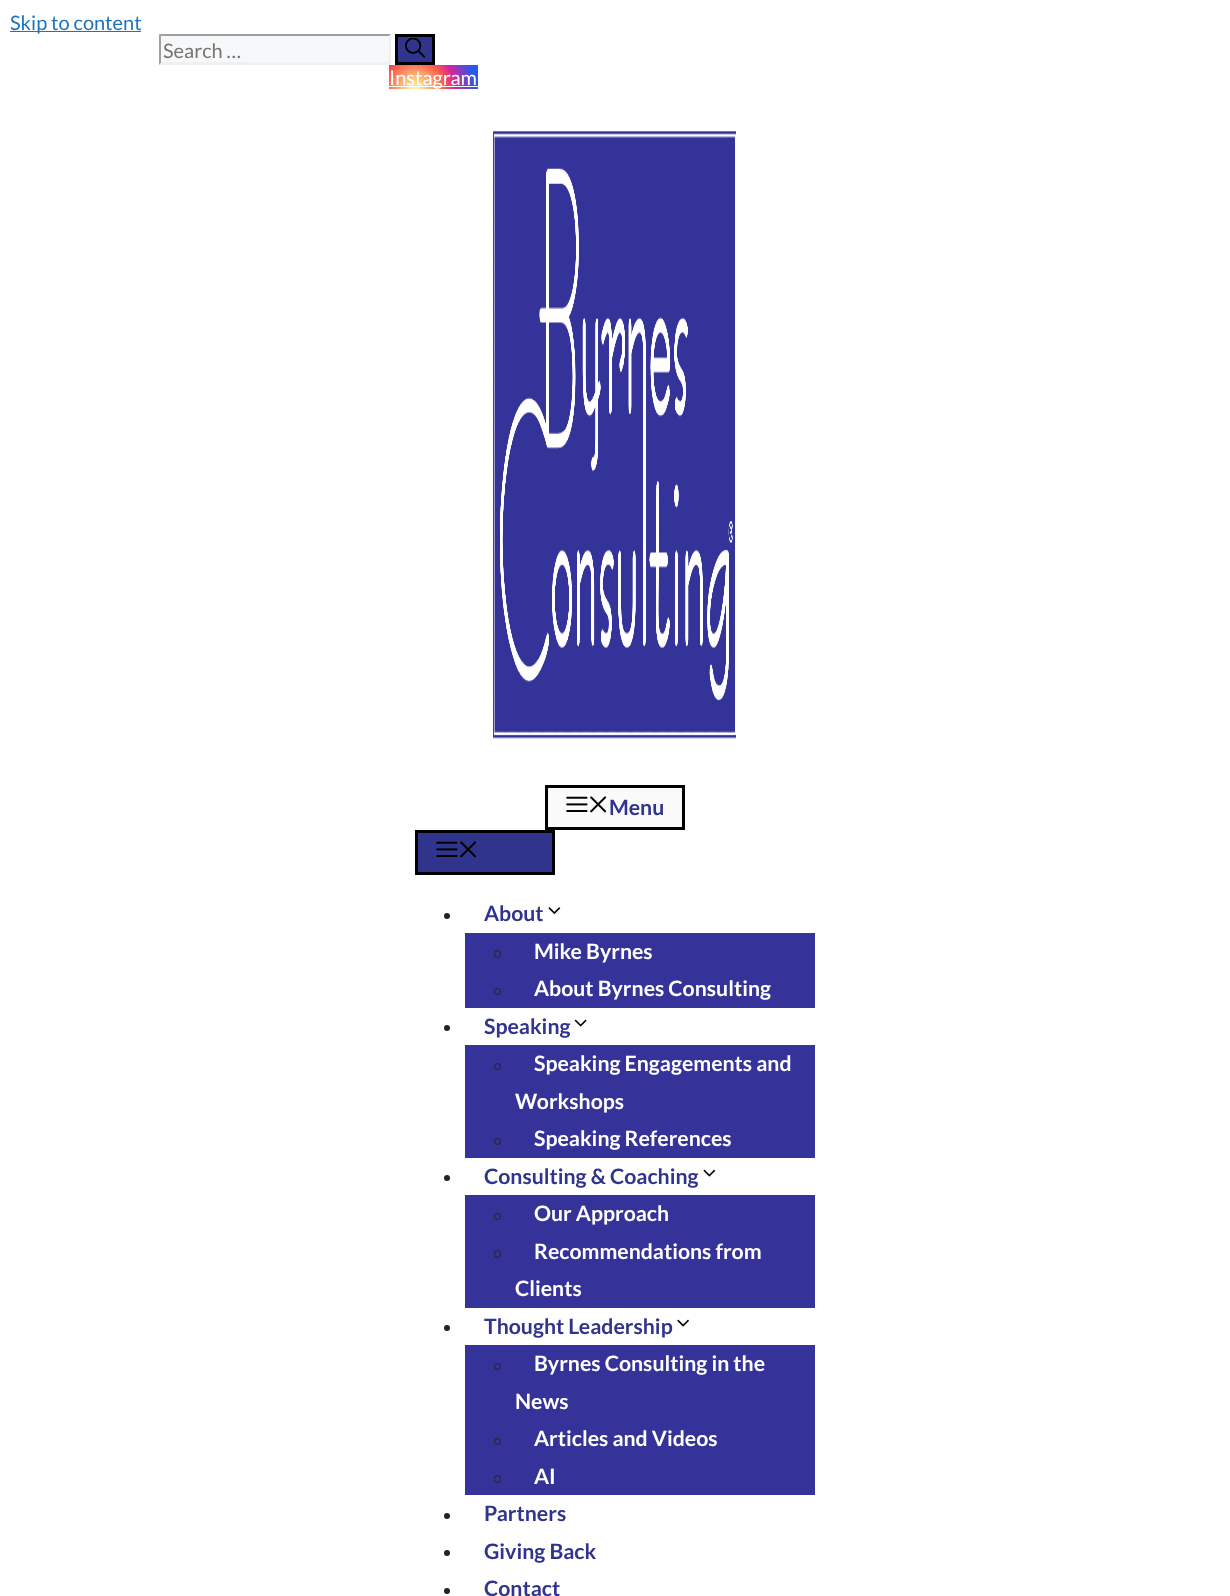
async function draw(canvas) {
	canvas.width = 1230;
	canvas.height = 1596;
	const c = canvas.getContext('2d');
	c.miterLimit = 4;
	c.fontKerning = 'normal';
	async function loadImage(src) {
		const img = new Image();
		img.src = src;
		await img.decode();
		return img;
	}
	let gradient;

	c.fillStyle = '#fff';
	c.fillRect(0, 0, 1230, 1596);
	c.fillStyle = '#1e73be';
	c.fillRect(10, 31, 131, 1);
	c.font = '20px Lato';
	c.fillText('Skip to content', 10, 30);
	c.fillStyle = '#f7f8f9';
	c.fillRect(159, 34, 232, 31);
	c.fillStyle = '#a0a0a0';
	c.beginPath();
	c.moveTo(159, 34);
	c.lineTo(391, 34);
	c.lineTo(389, 36);
	c.lineTo(161, 36);
	c.closePath();
	c.fill();
	c.fillStyle = '#f0f0f0';
	c.beginPath();
	c.moveTo(391, 34);
	c.lineTo(391, 65);
	c.lineTo(389, 62.5);
	c.lineTo(389, 36);
	c.closePath();
	c.fill();
	c.beginPath();
	c.moveTo(391, 65);
	c.lineTo(159, 65);
	c.lineTo(161, 62);
	c.lineTo(389, 62);
	c.closePath();
	c.fill();
	c.fillStyle = '#a0a0a0';
	c.beginPath();
	c.moveTo(159, 65);
	c.lineTo(159, 34);
	c.lineTo(161, 36);
	c.lineTo(161, 62.5);
	c.closePath();
	c.fill();
	c.fillStyle = '#757575';
	c.fillText('Search …', 163, 58);
	c.fillStyle = '#30348c';
	c.beginPath();
	c.rect(396.5, 35.5, 37, 28);
	c.fill();
	c.strokeStyle = '#000';
	c.lineWidth = 3;
	c.stroke();
	c.drawImage(await loadImage('img1.png'), 405, 38, 20, 20);
	gradient = c.createRadialGradient(415, 90, 0, 415, 90, 67);
	gradient.addColorStop(0, '#fdf497');
	gradient.addColorStop(0.05, '#fdf497');
	gradient.addColorStop(0.45, '#fd5949');
	gradient.addColorStop(0.6, '#d6249f');
	gradient.addColorStop(0.9, '#285aeb');
	c.fillStyle = gradient;
	c.fillRect(389, 65, 89, 24);
	c.fillStyle = '#fff';
	c.fillRect(389, 86, 89, 1);
	c.fillText('Instagram', 389, 85);
	c.drawImage(await loadImage('img2.png'), 493, 131, 243, 608);
	c.fillStyle = '#fafafa';
	c.beginPath();
	c.rect(546.5, 786.5, 137, 42);
	c.fill();
	c.stroke();
	c.drawImage(await loadImage('img3.png'), 566, 796, 22, 16);
	c.drawImage(await loadImage('img4.png'), 590, 796, 17, 17);
	c.font = 'bold 21.25px Lato';
	c.fillStyle = '#30348c';
	c.fillText('Menu', 609, 815);
	c.beginPath();
	c.rect(416.5, 831.5, 137, 42);
	c.fill();
	c.stroke();
	c.drawImage(await loadImage('img5.png'), 436, 841, 22, 16);
	c.drawImage(await loadImage('img6.png'), 460, 841, 17, 17);
	c.fillText('About', 484, 921);
	c.drawImage(await loadImage('img7.png'), 548, 907, 13, 7);
	c.fillStyle = '#222';
	c.beginPath();
	c.arc(447, 916, 3, 0, 2 * Math.PI);
	c.fill();
	c.fillStyle = '#353299';
	c.fillRect(465, 933, 350, 75);
	c.beginPath();
	c.roundRect(494.5, 950.5, 6, 7, 3);
	c.strokeStyle = '#222';
	c.lineWidth = 1;
	c.stroke();
	c.fillStyle = '#fff';
	c.fillText('Mike Byrnes', 534, 959);
	c.beginPath();
	c.arc(497.5, 991.5, 3, 0, 2 * Math.PI);
	c.stroke();
	c.fillText('About Byrnes Consulting', 534, 996);
	c.fillStyle = '#30348c';
	c.fillText('Speaking', 484, 1034);
	c.drawImage(await loadImage('img8.png'), 574, 1019, 13, 8);
	c.fillStyle = '#222';
	c.beginPath();
	c.arc(447, 1028, 3, 0, 2 * Math.PI);
	c.fill();
	c.fillStyle = '#353299';
	c.fillRect(465, 1045, 350, 113);
	c.beginPath();
	c.arc(497.5, 1066.5, 3, 0, 2 * Math.PI);
	c.stroke();
	c.fillStyle = '#fff';
	c.fillText('Speaking Engagements and', 534, 1071);
	c.fillText('Workshops', 515, 1109);
	c.beginPath();
	c.arc(497.5, 1141.5, 3, 0, 2 * Math.PI);
	c.stroke();
	c.fillText('Speaking References', 534, 1146);
	c.fillStyle = '#30348c';
	c.fillText('Consulting & Coaching', 484, 1184);
	c.drawImage(await loadImage('img9.png'), 703, 1169, 13, 8);
	c.fillStyle = '#222';
	c.beginPath();
	c.arc(447, 1178, 3, 0, 2 * Math.PI);
	c.fill();
	c.fillStyle = '#353299';
	c.fillRect(465, 1195, 350, 113);
	c.beginPath();
	c.arc(497.5, 1216.5, 3, 0, 2 * Math.PI);
	c.stroke();
	c.fillStyle = '#fff';
	c.fillText('Our Approach', 534, 1221);
	c.beginPath();
	c.roundRect(494.5, 1250.5, 6, 7, 3);
	c.stroke();
	c.fillText('Recommendations from', 534, 1259);
	c.fillText('Clients', 515, 1296);
	c.fillStyle = '#30348c';
	c.fillText('Thought Leadership', 484, 1334);
	c.drawImage(await loadImage('img10.png'), 677, 1319, 12, 8);
	c.fillStyle = '#222';
	c.beginPath();
	c.arc(447, 1328, 3, 0, 2 * Math.PI);
	c.fill();
	c.fillStyle = '#353299';
	c.fillRect(465, 1345, 350, 150);
	c.beginPath();
	c.arc(497.5, 1366.5, 3, 0, 2 * Math.PI);
	c.stroke();
	c.fillStyle = '#fff';
	c.fillText('Byrnes Consulting in the', 534, 1371);
	c.fillText('News', 515, 1409);
	c.beginPath();
	c.arc(497.5, 1441.5, 3, 0, 2 * Math.PI);
	c.stroke();
	c.fillText('Articles and Videos', 534, 1446);
	c.beginPath();
	c.roundRect(494.5, 1475.5, 6, 7, 3);
	c.stroke();
	c.fillText('AI', 534, 1484);
	c.fillStyle = '#222';
	c.beginPath();
	c.arc(447, 1516, 3, 0, 2 * Math.PI);
	c.fill();
	c.fillStyle = '#30348c';
	c.fillText('Partners', 484, 1521);
	c.fillStyle = '#222';
	c.beginPath();
	c.arc(447, 1553, 3, 0, 2 * Math.PI);
	c.fill();
	c.fillStyle = '#30348c';
	c.fillText('Giving Back', 484, 1559);
	c.fillStyle = '#222';
	c.beginPath();
	c.arc(447, 1591, 3, 0, 2 * Math.PI);
	c.fill();
	c.fillStyle = '#30348c';
	c.fillText('Contact', 484, 1596);
}

draw(document.querySelector('canvas'));
